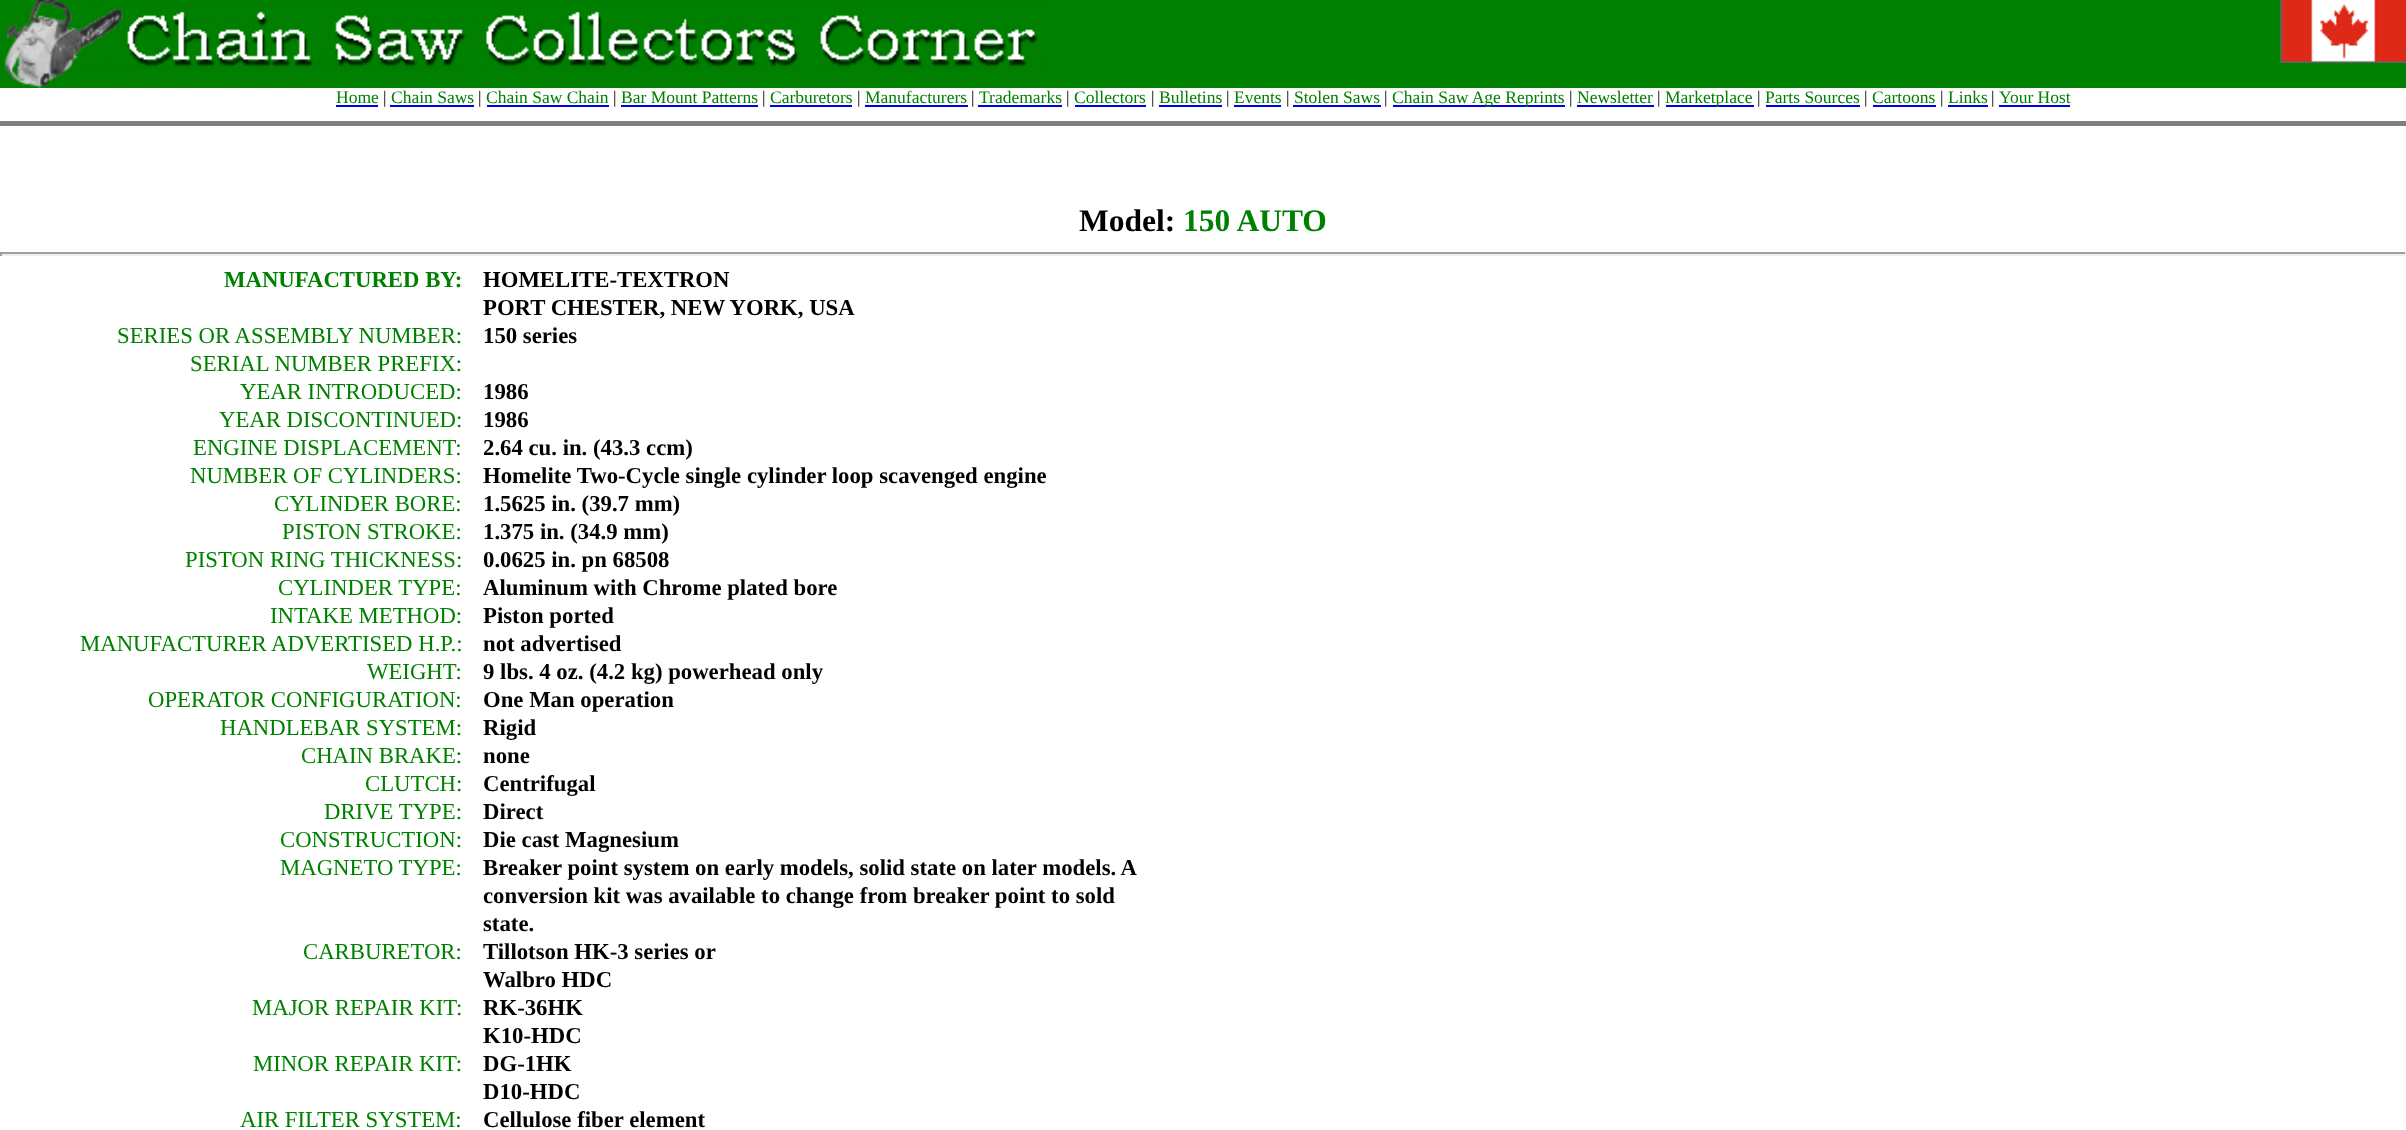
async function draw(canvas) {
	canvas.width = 2406;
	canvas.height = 1130;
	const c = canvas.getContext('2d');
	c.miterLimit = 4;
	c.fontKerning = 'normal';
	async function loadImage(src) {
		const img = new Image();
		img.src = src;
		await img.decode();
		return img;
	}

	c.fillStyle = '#fff';
	c.fillRect(0, 0, 2406, 1130);
	c.fillStyle = '#008000';
	c.fillRect(0, 0, 2406, 88);
	c.drawImage(await loadImage('img1.png'), 4, 0, 1046, 88);
	c.drawImage(await loadImage('img2.png'), 2280, 0, 126, 63);
	c.font = '17.5px Liberation Serif';
	c.fillText('Home', 336, 103);
	c.fillStyle = '#00e';
	c.fillRect(336, 105, 42, 2);
	c.fillStyle = '#000';
	c.fillText('|', 383, 103);
	c.fillStyle = '#008000';
	c.fillText('Chain Saws', 391, 103);
	c.fillStyle = '#00e';
	c.fillRect(390, 105, 84, 2);
	c.fillStyle = '#000';
	c.fillText('|', 478, 103);
	c.fillStyle = '#008000';
	c.fillText('Chain Saw Chain', 486, 103);
	c.fillStyle = '#00e';
	c.fillRect(487, 105, 122, 2);
	c.fillStyle = '#000';
	c.fillText('|', 613, 103);
	c.fillStyle = '#008000';
	c.fillText('Bar Mount Patterns', 621, 103);
	c.fillStyle = '#00e';
	c.fillRect(621, 105, 137, 2);
	c.fillStyle = '#000';
	c.fillText('|', 762, 103);
	c.fillStyle = '#008000';
	c.fillText('Carburetors', 770, 103);
	c.fillStyle = '#00e';
	c.fillRect(770, 105, 82, 2);
	c.fillStyle = '#000';
	c.fillText('|', 857, 103);
	c.fillStyle = '#008000';
	c.fillText('Manufacturers', 865, 103);
	c.fillStyle = '#00e';
	c.fillRect(865, 105, 103, 2);
	c.fillStyle = '#000';
	c.fillText('|', 971, 103);
	c.fillStyle = '#008000';
	c.fillText('Trademarks', 979, 103);
	c.fillStyle = '#00e';
	c.fillRect(978, 105, 84, 2);
	c.fillStyle = '#000';
	c.fillText('|', 1066, 103);
	c.fillStyle = '#008000';
	c.fillText('Collectors', 1074, 103);
	c.fillStyle = '#00e';
	c.fillRect(1075, 105, 71, 2);
	c.fillStyle = '#000';
	c.fillText('|', 1151, 103);
	c.fillStyle = '#008000';
	c.fillText('Bulletins', 1159, 103);
	c.fillStyle = '#00e';
	c.fillRect(1159, 105, 63, 2);
	c.fillStyle = '#000';
	c.fillText('|', 1226, 103);
	c.fillStyle = '#008000';
	c.fillText('Events', 1234, 103);
	c.fillStyle = '#00e';
	c.fillRect(1234, 105, 47, 2);
	c.fillStyle = '#000';
	c.fillText('|', 1286, 103);
	c.fillStyle = '#008000';
	c.fillText('Stolen Saws', 1294, 103);
	c.fillStyle = '#00e';
	c.fillRect(1293, 105, 88, 2);
	c.fillStyle = '#000';
	c.fillText('|', 1384, 103);
	c.fillStyle = '#00e';
	c.fillRect(1393, 105, 172, 2);
	c.fillStyle = '#008000';
	c.fillText('Chain Saw Age Reprints', 1392, 103);
	c.fillStyle = '#000';
	c.fillText('|', 1569, 103);
	c.fillStyle = '#008000';
	c.fillText('Newsletter', 1577, 103);
	c.fillStyle = '#00e';
	c.fillRect(1577, 105, 77, 2);
	c.fillStyle = '#000';
	c.fillText('|', 1657, 103);
	c.fillStyle = '#00e';
	c.fillRect(1666, 105, 88, 2);
	c.fillStyle = '#008000';
	c.fillText('Marketplace', 1665, 103);
	c.fillStyle = '#000';
	c.fillText('|', 1757, 103);
	c.fillStyle = '#008000';
	c.fillText('Parts Sources', 1765, 103);
	c.fillStyle = '#00e';
	c.fillRect(1766, 105, 94, 2);
	c.fillStyle = '#000';
	c.fillText('|', 1864, 103);
	c.fillStyle = '#008000';
	c.fillText('Cartoons', 1872, 103);
	c.fillStyle = '#00e';
	c.fillRect(1873, 105, 63, 2);
	c.fillStyle = '#000';
	c.fillText('|', 1940, 103);
	c.fillStyle = '#008000';
	c.fillText('Links', 1948, 103);
	c.fillStyle = '#00e';
	c.fillRect(1948, 105, 40, 2);
	c.fillStyle = '#000';
	c.fillText('|', 1991, 103);
	c.fillStyle = '#008000';
	c.fillText('Your Host', 1999, 103);
	c.fillStyle = '#00e';
	c.fillRect(1999, 105, 71, 2);
	c.fillStyle = '#808080';
	c.fillRect(0, 121, 2406, 5);
	c.font = 'bold 31.5px Liberation Serif';
	c.fillStyle = '#000';
	c.fillText('Model:', 1079, 231);
	c.fillStyle = '#008000';
	c.fillText('150 AUTO', 1183, 231);
	for (const [x, y, w, h, color] of [
		[0, 252, 2406, 2, '#9f9f9f'],
		[2405, 252, 1, 4, '#eee'],
		[0, 254, 2406, 2, '#eee'],
		[0, 252, 2, 4, '#9f9f9f'],
	]) {
		c.fillStyle = color;
		c.fillRect(x, y, w, h);
	}
	c.font = 'bold 22.75px Liberation Serif';
	c.fillStyle = '#008000';
	c.fillText('MANUFACTURED BY:', 224, 287);
	c.fillStyle = '#000';
	c.fillText('HOMELITE-TEXTRON', 483, 287);
	c.fillText('PORT CHESTER, NEW YORK, USA', 483, 315);
	c.font = '22.75px Liberation Serif';
	c.fillStyle = '#008000';
	c.fillText('SERIES OR ASSEMBLY NUMBER:', 117, 343);
	c.font = 'bold 22.75px Liberation Serif';
	c.fillStyle = '#000';
	c.fillText('150 series', 483, 343);
	c.font = '22.75px Liberation Serif';
	c.fillStyle = '#008000';
	c.fillText('SERIAL NUMBER PREFIX:', 190, 371);
	c.fillText('YEAR INTRODUCED:', 240, 399);
	c.font = 'bold 22.75px Liberation Serif';
	c.fillStyle = '#000';
	c.fillText('1986', 483, 399);
	c.font = '22.75px Liberation Serif';
	c.fillStyle = '#008000';
	c.fillText('YEAR DISCONTINUED:', 219, 427);
	c.font = 'bold 22.75px Liberation Serif';
	c.fillStyle = '#000';
	c.fillText('1986', 483, 427);
	c.font = '22.75px Liberation Serif';
	c.fillStyle = '#008000';
	c.fillText('ENGINE DISPLACEMENT:', 193, 455);
	c.font = 'bold 22.75px Liberation Serif';
	c.fillStyle = '#000';
	c.fillText('2.64 cu. in. (43.3 ccm)', 483, 455);
	c.font = '22.75px Liberation Serif';
	c.fillStyle = '#008000';
	c.fillText('NUMBER OF CYLINDERS:', 190, 483);
	c.font = 'bold 22.75px Liberation Serif';
	c.fillStyle = '#000';
	c.fillText('Homelite Two-Cycle single cylinder loop scavenged engine', 483, 483);
	c.font = '22.75px Liberation Serif';
	c.fillStyle = '#008000';
	c.fillText('CYLINDER BORE:', 274, 511);
	c.font = 'bold 22.75px Liberation Serif';
	c.fillStyle = '#000';
	c.fillText('1.5625 in. (39.7 mm)', 483, 511);
	c.font = '22.75px Liberation Serif';
	c.fillStyle = '#008000';
	c.fillText('PISTON STROKE:', 282, 539);
	c.font = 'bold 22.75px Liberation Serif';
	c.fillStyle = '#000';
	c.fillText('1.375 in. (34.9 mm)', 483, 539);
	c.font = '22.75px Liberation Serif';
	c.fillStyle = '#008000';
	c.fillText('PISTON RING THICKNESS:', 185, 567);
	c.font = 'bold 22.75px Liberation Serif';
	c.fillStyle = '#000';
	c.fillText('0.0625 in. pn 68508', 483, 567);
	c.font = '22.75px Liberation Serif';
	c.fillStyle = '#008000';
	c.fillText('CYLINDER TYPE:', 278, 595);
	c.font = 'bold 22.75px Liberation Serif';
	c.fillStyle = '#000';
	c.fillText('Aluminum with Chrome plated bore', 483, 595);
	c.font = '22.75px Liberation Serif';
	c.fillStyle = '#008000';
	c.fillText('INTAKE METHOD:', 270, 623);
	c.font = 'bold 22.75px Liberation Serif';
	c.fillStyle = '#000';
	c.fillText('Piston ported', 483, 623);
	c.font = '22.75px Liberation Serif';
	c.fillStyle = '#008000';
	c.fillText('MANUFACTURER ADVERTISED H.P.:', 80, 651);
	c.font = 'bold 22.75px Liberation Serif';
	c.fillStyle = '#000';
	c.fillText('not advertised', 483, 651);
	c.font = '22.75px Liberation Serif';
	c.fillStyle = '#008000';
	c.fillText('WEIGHT:', 367, 679);
	c.font = 'bold 22.75px Liberation Serif';
	c.fillStyle = '#000';
	c.fillText('9 lbs. 4 oz. (4.2 kg) powerhead only', 483, 679);
	c.font = '22.75px Liberation Serif';
	c.fillStyle = '#008000';
	c.fillText('OPERATOR CONFIGURATION:', 148, 707);
	c.font = 'bold 22.75px Liberation Serif';
	c.fillStyle = '#000';
	c.fillText('One Man operation', 483, 707);
	c.font = '22.75px Liberation Serif';
	c.fillStyle = '#008000';
	c.fillText('HANDLEBAR SYSTEM:', 220, 735);
	c.font = 'bold 22.75px Liberation Serif';
	c.fillStyle = '#000';
	c.fillText('Rigid', 483, 735);
	c.font = '22.75px Liberation Serif';
	c.fillStyle = '#008000';
	c.fillText('CHAIN BRAKE:', 301, 763);
	c.font = 'bold 22.75px Liberation Serif';
	c.fillStyle = '#000';
	c.fillText('none', 483, 763);
	c.font = '22.75px Liberation Serif';
	c.fillStyle = '#008000';
	c.fillText('CLUTCH:', 365, 791);
	c.font = 'bold 22.75px Liberation Serif';
	c.fillStyle = '#000';
	c.fillText('Centrifugal', 483, 791);
	c.font = '22.75px Liberation Serif';
	c.fillStyle = '#008000';
	c.fillText('DRIVE TYPE:', 324, 819);
	c.font = 'bold 22.75px Liberation Serif';
	c.fillStyle = '#000';
	c.fillText('Direct', 483, 819);
	c.font = '22.75px Liberation Serif';
	c.fillStyle = '#008000';
	c.fillText('CONSTRUCTION:', 280, 847);
	c.font = 'bold 22.75px Liberation Serif';
	c.fillStyle = '#000';
	c.fillText('Die cast Magnesium', 483, 847);
	c.font = '22.75px Liberation Serif';
	c.fillStyle = '#008000';
	c.fillText('MAGNETO TYPE:', 280, 875);
	c.font = 'bold 22.75px Liberation Serif';
	c.fillStyle = '#000';
	for (const [text, x, y] of [
		['Breaker point system on early models, solid state on later models. A', 483, 875],
		['conversion kit was available to change from breaker point to sold', 483, 903],
		['state.', 483, 931],
	]) {
		c.fillText(text, x, y);
	}
	c.font = '22.75px Liberation Serif';
	c.fillStyle = '#008000';
	c.fillText('CARBURETOR:', 303, 959);
	c.font = 'bold 22.75px Liberation Serif';
	c.fillStyle = '#000';
	c.fillText('Tillotson HK-3 series or', 483, 959);
	c.fillText('Walbro HDC', 483, 987);
	c.font = '22.75px Liberation Serif';
	c.fillStyle = '#008000';
	c.fillText('MAJOR REPAIR KIT:', 252, 1015);
	c.font = 'bold 22.75px Liberation Serif';
	c.fillStyle = '#000';
	c.fillText('RK-36HK', 483, 1015);
	c.fillText('K10-HDC', 483, 1043);
	c.font = '22.75px Liberation Serif';
	c.fillStyle = '#008000';
	c.fillText('MINOR REPAIR KIT:', 253, 1071);
	c.font = 'bold 22.75px Liberation Serif';
	c.fillStyle = '#000';
	c.fillText('DG-1HK', 483, 1071);
	c.fillText('D10-HDC', 483, 1099);
	c.font = '22.75px Liberation Serif';
	c.fillStyle = '#008000';
	c.fillText('AIR FILTER SYSTEM:', 240, 1127);
	c.font = 'bold 22.75px Liberation Serif';
	c.fillStyle = '#000';
	c.fillText('Cellulose fiber element', 483, 1127);
}

draw(document.querySelector('canvas'));
